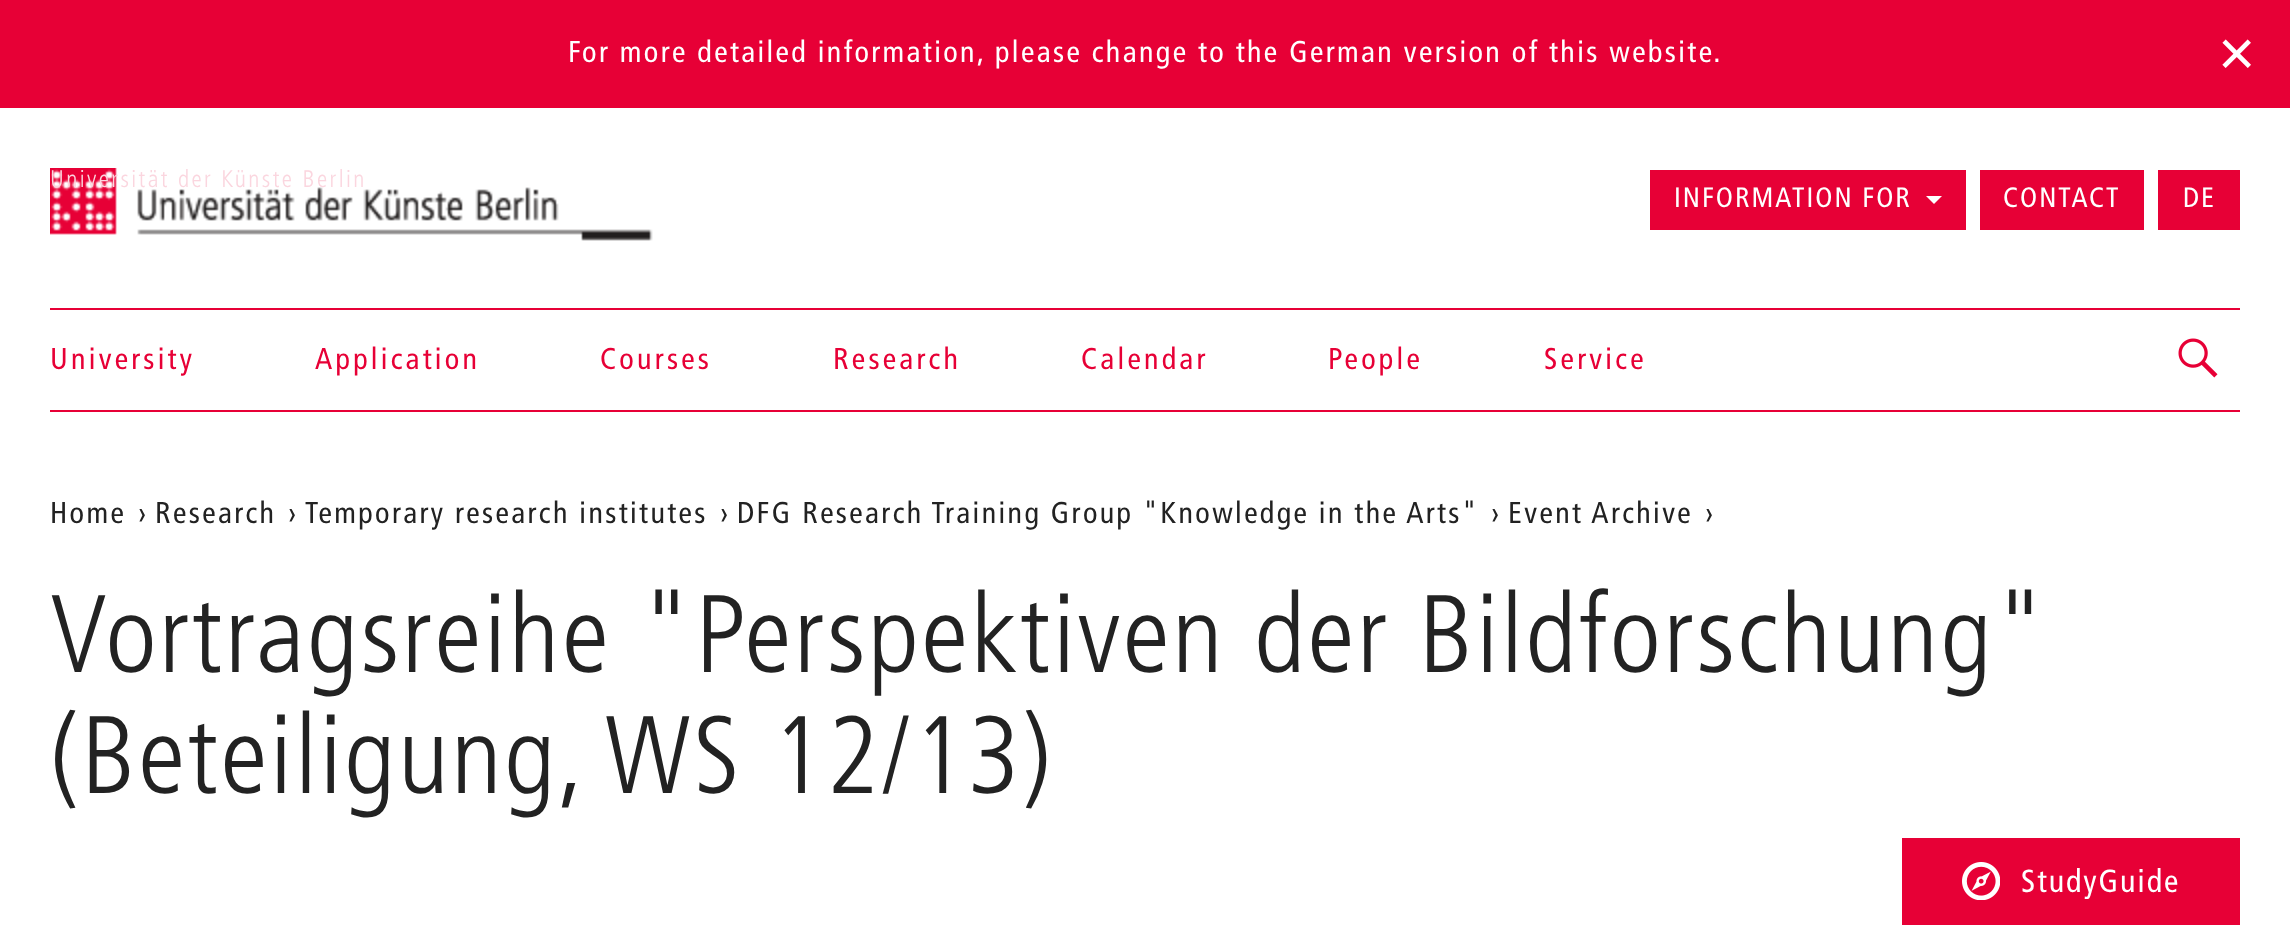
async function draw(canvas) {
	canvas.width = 2290;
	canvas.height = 925;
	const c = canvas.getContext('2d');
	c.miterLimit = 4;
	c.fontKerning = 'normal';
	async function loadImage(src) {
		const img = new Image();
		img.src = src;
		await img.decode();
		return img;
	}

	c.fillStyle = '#fff';
	c.fillRect(0, 0, 2290, 925);
	c.fillStyle = '#e70036';
	c.fillRect(0, 0, 2290, 108);
	c.letterSpacing = '2.4px';
	c.font = '30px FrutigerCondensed';
	c.fillStyle = '#fff';
	c.fillText('For more detailed information, please change to the German version of this website.', 568, 62);
	c.font = '64px Liberation Sans';
	c.fillText('×', 2218, 75);
	c.drawImage(await loadImage('img1.png'), 50, 168, 603, 73);
	c.font = '300 24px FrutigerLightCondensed';
	c.fillStyle = '#fbd6df';
	c.fillText('Universität der Künste Berlin', 50, 187);
	for (const [x, y, w, h, color] of [
		[50, 308, 2190, 2, '#e70036'],
		[50, 410, 2190, 2, '#e70036'],
		[1650, 170, 316, 60, '#e70036'],
	]) {
		c.fillStyle = color;
		c.fillRect(x, y, w, h);
	}
	c.letterSpacing = '2px';
	c.font = '28px FrutigerCondensed';
	c.fillStyle = '#fff';
	c.fillText('INFORMATION FOR', 1674, 207);
	c.beginPath();
	c.moveTo(1926, 196);
	c.lineTo(1942, 196);
	c.lineTo(1934, 204);
	c.closePath();
	c.fill();
	c.fillStyle = '#e70036';
	c.fillRect(1980, 170, 164, 60);
	c.fillStyle = '#fff';
	c.fillText('CONTACT', 2003, 207);
	c.fillStyle = '#e70036';
	c.fillRect(2158, 170, 82, 60);
	c.fillStyle = '#fff';
	c.fillText('DE', 2183, 207);
	c.letterSpacing = '3.25px';
	c.font = '30px FrutigerCondensed';
	c.fillStyle = '#e70036';
	for (const [text, x, y] of [
		['University', 50, 369],
		['Application', 315, 369],
		['Courses', 600, 369],
		['Research', 833, 369],
		['Calendar', 1081, 369],
		['People', 1328, 369],
		['Service', 1544, 369],
	]) {
		c.fillText(text, x, y);
	}
	c.drawImage(await loadImage('img2.png'), 2178, 338, 40, 40);
	c.letterSpacing = '2.4px';
	c.fillStyle = '#222';
	for (const [text, x, y] of [
		['Home', 50, 523],
		['›', 138, 523],
		['Research', 155, 523],
		['›', 288, 523],
		['Temporary research institutes', 305, 523],
		['›', 720, 523],
		['DFG Research Training Group "Knowledge in the Arts"', 737, 523],
		['›', 1491, 523],
		['Event Archive', 1508, 523],
		['›', 1705, 523],
	]) {
		c.fillText(text, x, y);
	}
	c.font = '300 110px FrutigerLightCondensed';
	c.fillText('Vortragsreihe "Perspektiven der Bildforschung"', 50, 672);
	c.fillText('(Beteiligung, WS 12/13)', 50, 793);
	c.fillStyle = '#e70036';
	c.fillRect(1902, 838, 338, 87);
	c.drawImage(await loadImage('img3.png'), 1962, 862, 38, 38);
	c.letterSpacing = '2px';
	c.font = '32px FrutigerCondensed';
	c.fillStyle = '#fff';
	c.fillText('StudyGuide', 2021, 892);
}

draw(document.querySelector('canvas'));
